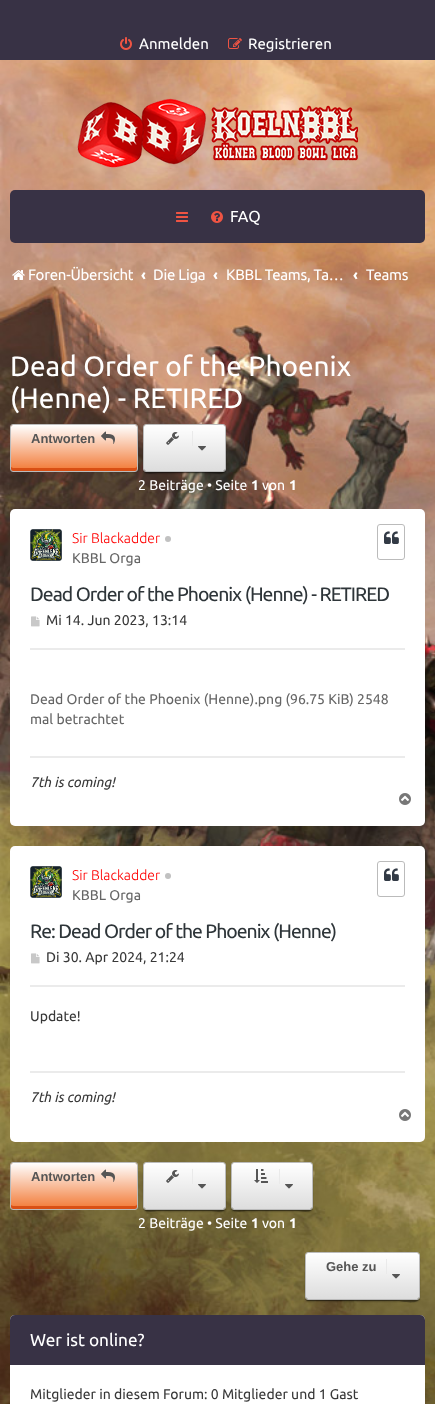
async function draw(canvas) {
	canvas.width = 435;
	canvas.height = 1404;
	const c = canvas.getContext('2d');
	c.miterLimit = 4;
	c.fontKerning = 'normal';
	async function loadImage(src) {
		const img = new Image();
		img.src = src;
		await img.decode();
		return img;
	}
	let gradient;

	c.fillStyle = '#fff';
	c.fillRect(0, 0, 435, 1404);
	c.drawImage(await loadImage('img1.png'), 0, 60, 435, 1344);
	c.fillStyle = '#383245';
	c.fillRect(0, 0, 435, 60);
	c.drawImage(await loadImage('img2.png'), 120, 37, 12, 13);
	c.font = '15px Ubuntu';
	c.fillStyle = '#fff';
	c.fillText('Anmelden', 139, 49);
	c.drawImage(await loadImage('img3.png'), 228, 38, 14, 11);
	c.fillText('Registrieren', 248, 49);
	c.drawImage(await loadImage('img4.png'), 77, 98, 281, 71);
	c.fillStyle = '#383245';
	c.beginPath();
	c.roundRect(10, 190, 415, 53, 5);
	c.fill();
	c.drawImage(await loadImage('img5.png'), 176, 212, 12, 10);
	c.drawImage(await loadImage('img6.png'), 211, 211, 12, 12);
	c.font = '16px Ubuntu';
	c.fillStyle = '#fff';
	c.fillText('FAQ', 230, 222);
	c.drawImage(await loadImage('img7.png'), 12, 270, 13, 10);
	c.save();
	c.beginPath();
	c.rect(10, 258, 123, 33);
	c.clip();
	c.letterSpacing = '-0.25px';
	c.font = '15px Ubuntu';
	c.fillText('Foren-Übersicht', 28, 280);
	c.restore();
	c.font = 'bold 15px Ubuntu';
	c.fillText('‹', 141, 280);
	c.letterSpacing = '-0.25px';
	c.font = '15px Ubuntu';
	c.fillText('Die Liga', 153, 280);
	c.letterSpacing = '0px';
	c.font = 'bold 15px Ubuntu';
	c.fillText('‹', 213, 280);
	c.letterSpacing = '-0.25px';
	c.font = '15px Ubuntu';
	c.fillText('KBBL Teams, Ta…', 226, 280);
	c.letterSpacing = '0px';
	c.font = 'bold 15px Ubuntu';
	c.fillText('‹', 353, 280);
	c.letterSpacing = '-0.25px';
	c.font = '15px Ubuntu';
	c.fillText('Teams', 366, 280);
	c.letterSpacing = '0px';
	c.font = '28px Ubuntu';
	c.fillText('Dead Order of the Phoenix', 10, 376);
	c.fillText('(Henne) - RETIRED', 10, 408);
	c.fillStyle = '#f27935';
	c.beginPath();
	c.roundRect(11, 425, 126, 46, 2);
	c.fill();
	gradient = c.createLinearGradient(74, 425, 74, 471);
	gradient.addColorStop(0, '#fff');
	gradient.addColorStop(1, '#ffffff00');
	c.fillStyle = gradient;
	c.beginPath();
	c.roundRect(11, 425, 126, 46, 2);
	c.fill();
	c.fillStyle = '#d94f14';
	c.beginPath();
	c.moveTo(11, 466);
	c.lineTo(11, 469);
	c.bezierCurveTo(11, 470, 12, 471, 13, 471);
	c.lineTo(135, 471);
	c.bezierCurveTo(136, 471, 137, 470, 137, 469);
	c.lineTo(137, 466);
	c.bezierCurveTo(137, 467, 136, 468, 135, 468);
	c.lineTo(13, 468);
	c.lineTo(11, 467);
	c.closePath();
	c.fill();
	c.beginPath();
	c.roundRect(10.5, 424.5, 127, 47, 2.5);
	c.strokeStyle = '#bbb';
	c.stroke();
	c.font = 'bold 13px Liberation Sans';
	c.fillStyle = '#555';
	c.fillText('Antworten', 31, 443);
	c.drawImage(await loadImage('img8.png'), 101, 431, 14, 13);
	c.fillStyle = '#00000080';
	c.filter = 'blur(1px)';
	c.beginPath();
	c.roundRect(144, 427, 81, 46, 2);
	c.fill();
	c.filter = 'none';
	c.fillStyle = '#0000004d';
	c.beginPath();
	c.moveTo(143, 469);
	c.bezierCurveTo(143, 476, 155, 473, 159, 473);
	c.lineTo(210, 473);
	c.bezierCurveTo(214, 473, 226, 476, 226, 469);
	c.bezierCurveTo(226, 471, 225, 472, 223, 472);
	c.lineTo(146, 472);
	c.bezierCurveTo(144, 472, 143, 471, 143, 469);
	c.closePath();
	c.fill();
	c.fillStyle = '#ddd';
	c.beginPath();
	c.roundRect(144, 425, 81, 46, 2);
	c.fill();
	gradient = c.createLinearGradient(185, 425, 185, 471);
	gradient.addColorStop(0, '#fff');
	gradient.addColorStop(1, '#ffffff00');
	c.fillStyle = gradient;
	c.beginPath();
	c.roundRect(144, 425, 81, 46, 2);
	c.fill();
	c.fillStyle = '#ffffff4d';
	c.beginPath();
	c.moveTo(146, 426);
	c.lineTo(223, 426);
	c.bezierCurveTo(224, 426, 225, 427, 225, 428);
	c.bezierCurveTo(225, 421, 213, 425, 210, 425);
	c.lineTo(159, 425);
	c.bezierCurveTo(156, 425, 144, 421, 144, 428);
	c.bezierCurveTo(144, 427, 145, 426, 146, 426);
	c.closePath();
	c.fill();
	c.beginPath();
	c.roundRect(143.5, 424.5, 82, 47, 2.5);
	c.stroke();
	c.drawImage(await loadImage('img9.png'), 166, 432, 13, 13);
	c.fillStyle = '#eaeaea';
	c.fillRect(192, 431, 1, 15);
	c.drawImage(await loadImage('img10.png'), 198, 446, 8, 5);
	c.font = '14px Ubuntu';
	c.fillStyle = '#fff';
	c.fillText('2 Beiträge • Seite', 138, 490);
	c.font = 'bold 14px Ubuntu';
	c.fillText('1', 251, 490);
	c.font = '14px Ubuntu';
	c.fillText('von', 262, 490);
	c.font = 'bold 14px Ubuntu';
	c.fillText('1', 289, 490);
	c.beginPath();
	c.roundRect(10, 509, 415, 317, 5);
	c.fill();
	c.drawImage(await loadImage('img11.png'), 30, 529, 32, 32);
	c.font = '300 14px Ubuntu';
	c.fillStyle = '#f00';
	c.fillText('Sir Blackadder', 72, 543);
	c.fillStyle = '#c1c1c1';
	c.beginPath();
	c.arc(168, 539, 3, 0, 2 * Math.PI);
	c.fill();
	c.font = '14px Ubuntu';
	c.fillStyle = '#666';
	c.fillText('KBBL Orga', 72, 563);
	c.beginPath();
	c.roundRect(377.5, 524.5, 27, 35, 2.5);
	c.stroke();
	c.drawImage(await loadImage('img12.png'), 384, 531, 15, 13);
	c.letterSpacing = '-1px';
	c.font = '19.4px Ubuntu';
	c.fillStyle = '#2e3539';
	c.fillText('Dead Order of the Phoenix (Henne) - RETIRED', 30, 601);
	c.drawImage(await loadImage('img13.png'), 31, 616, 9, 11);
	c.letterSpacing = '0px';
	c.font = '14px Ubuntu';
	c.fillStyle = '#383838';
	c.fillText('Mi 14. Jun 2023, 13:14', 46, 625);
	c.fillStyle = '#ebebeb';
	c.fillRect(30, 648, 375, 2);
	c.fillStyle = '#666';
	c.fillText('Dead Order of the Phoenix (Henne).png (96.75 KiB) 2548', 30, 704);
	c.fillText('mal betrachtet', 30, 724);
	c.fillStyle = '#ebebeb';
	c.fillRect(30, 756, 375, 2);
	c.font = 'italic 14px Ubuntu';
	c.fillStyle = '#383838';
	c.fillText('7th is coming!', 30, 787);
	c.drawImage(await loadImage('img14.png'), 399, 793, 12, 12);
	c.fillStyle = '#fff';
	c.beginPath();
	c.roundRect(10, 846, 415, 296, 5);
	c.fill();
	c.drawImage(await loadImage('img11.png'), 30, 866, 32, 32);
	c.font = '300 14px Ubuntu';
	c.fillStyle = '#f00';
	c.fillText('Sir Blackadder', 72, 880);
	c.fillStyle = '#c1c1c1';
	c.beginPath();
	c.arc(168, 876, 3, 0, 2 * Math.PI);
	c.fill();
	c.font = '14px Ubuntu';
	c.fillStyle = '#666';
	c.fillText('KBBL Orga', 72, 900);
	c.beginPath();
	c.roundRect(377.5, 861.5, 27, 35, 2.5);
	c.stroke();
	c.drawImage(await loadImage('img12.png'), 384, 868, 15, 13);
	c.letterSpacing = '-1px';
	c.font = '19.4px Ubuntu';
	c.fillStyle = '#2e3539';
	c.fillText('Re: Dead Order of the Phoenix (Henne)', 30, 938);
	c.drawImage(await loadImage('img13.png'), 31, 953, 9, 11);
	c.letterSpacing = '0px';
	c.font = '14px Ubuntu';
	c.fillStyle = '#383838';
	c.fillText('Di 30. Apr 2024, 21:24', 46, 962);
	c.fillStyle = '#ebebeb';
	c.fillRect(30, 985, 375, 2);
	c.fillStyle = '#383838';
	c.fillText('Update!', 30, 1021);
	c.fillStyle = '#ebebeb';
	c.fillRect(30, 1071, 375, 2);
	c.font = 'italic 14px Ubuntu';
	c.fillStyle = '#383838';
	c.fillText('7th is coming!', 30, 1102);
	c.drawImage(await loadImage('img14.png'), 399, 1109, 12, 12);
	c.fillStyle = '#f27935';
	c.beginPath();
	c.roundRect(11, 1163, 126, 46, 2);
	c.fill();
	gradient = c.createLinearGradient(74, 1163, 74, 1209);
	gradient.addColorStop(0, '#fff');
	gradient.addColorStop(1, '#ffffff00');
	c.fillStyle = gradient;
	c.beginPath();
	c.roundRect(11, 1163, 126, 46, 2);
	c.fill();
	c.fillStyle = '#d94f14';
	c.beginPath();
	c.moveTo(11, 1204);
	c.lineTo(11, 1207);
	c.bezierCurveTo(11, 1208, 12, 1209, 13, 1209);
	c.lineTo(135, 1209);
	c.bezierCurveTo(136, 1209, 137, 1208, 137, 1207);
	c.lineTo(137, 1204);
	c.bezierCurveTo(137, 1205, 136, 1206, 135, 1206);
	c.lineTo(13, 1206);
	c.lineTo(11, 1205);
	c.closePath();
	c.fill();
	c.beginPath();
	c.roundRect(10.5, 1162.5, 127, 47, 2.5);
	c.stroke();
	c.font = 'bold 13px Liberation Sans';
	c.fillStyle = '#555';
	c.fillText('Antworten', 31, 1181);
	c.drawImage(await loadImage('img8.png'), 101, 1169, 14, 13);
	c.fillStyle = '#00000080';
	c.filter = 'blur(1px)';
	c.beginPath();
	c.roundRect(144, 1165, 81, 46, 2);
	c.fill();
	c.filter = 'none';
	c.fillStyle = '#0000004d';
	c.beginPath();
	c.moveTo(143, 1207);
	c.bezierCurveTo(143, 1214, 155, 1211, 159, 1211);
	c.lineTo(210, 1211);
	c.bezierCurveTo(214, 1211, 226, 1214, 226, 1207);
	c.bezierCurveTo(226, 1209, 225, 1210, 223, 1210);
	c.lineTo(146, 1210);
	c.bezierCurveTo(144, 1210, 143, 1209, 143, 1207);
	c.closePath();
	c.fill();
	c.fillStyle = '#ddd';
	c.beginPath();
	c.roundRect(144, 1163, 81, 46, 2);
	c.fill();
	gradient = c.createLinearGradient(185, 1163, 185, 1209);
	gradient.addColorStop(0, '#fff');
	gradient.addColorStop(1, '#ffffff00');
	c.fillStyle = gradient;
	c.beginPath();
	c.roundRect(144, 1163, 81, 46, 2);
	c.fill();
	c.fillStyle = '#ffffff4d';
	c.beginPath();
	c.moveTo(146, 1164);
	c.lineTo(223, 1164);
	c.bezierCurveTo(224, 1164, 225, 1165, 225, 1166);
	c.bezierCurveTo(225, 1159, 213, 1163, 210, 1163);
	c.lineTo(159, 1163);
	c.bezierCurveTo(156, 1163, 144, 1159, 144, 1166);
	c.bezierCurveTo(144, 1165, 145, 1164, 146, 1164);
	c.closePath();
	c.fill();
	c.beginPath();
	c.roundRect(143.5, 1162.5, 82, 47, 2.5);
	c.stroke();
	c.drawImage(await loadImage('img9.png'), 166, 1170, 13, 13);
	c.fillStyle = '#eaeaea';
	c.fillRect(192, 1169, 1, 15);
	c.drawImage(await loadImage('img10.png'), 198, 1184, 8, 5);
	c.fillStyle = '#00000080';
	c.filter = 'blur(1px)';
	c.beginPath();
	c.roundRect(232, 1165, 80, 46, 2);
	c.fill();
	c.filter = 'none';
	c.fillStyle = '#0000004d';
	c.beginPath();
	c.moveTo(231, 1207);
	c.bezierCurveTo(231, 1214, 243, 1211, 247, 1211);
	c.lineTo(297, 1211);
	c.bezierCurveTo(301, 1211, 313, 1214, 313, 1207);
	c.bezierCurveTo(313, 1209, 312, 1210, 310, 1210);
	c.lineTo(234, 1210);
	c.bezierCurveTo(232, 1210, 231, 1209, 231, 1207);
	c.closePath();
	c.fill();
	c.fillStyle = '#ddd';
	c.beginPath();
	c.roundRect(232, 1163, 80, 46, 2);
	c.fill();
	gradient = c.createLinearGradient(272, 1163, 272, 1209);
	gradient.addColorStop(0, '#fff');
	gradient.addColorStop(1, '#ffffff00');
	c.fillStyle = gradient;
	c.beginPath();
	c.roundRect(232, 1163, 80, 46, 2);
	c.fill();
	c.fillStyle = '#ffffff4d';
	c.beginPath();
	c.moveTo(234, 1164);
	c.lineTo(310, 1164);
	c.bezierCurveTo(311, 1164, 312, 1165, 312, 1166);
	c.bezierCurveTo(312, 1160, 300, 1163, 297, 1163);
	c.lineTo(247, 1163);
	c.bezierCurveTo(244, 1163, 232, 1160, 232, 1166);
	c.bezierCurveTo(232, 1165, 233, 1164, 234, 1164);
	c.closePath();
	c.fill();
	c.beginPath();
	c.roundRect(231.5, 1162.5, 81, 47, 2.5);
	c.stroke();
	c.drawImage(await loadImage('img15.png'), 254, 1169, 14, 14);
	c.fillStyle = '#eaeaea';
	c.fillRect(279, 1169, 1, 15);
	c.drawImage(await loadImage('img10.png'), 285, 1184, 8, 5);
	c.font = '14px Ubuntu';
	c.fillStyle = '#fff';
	c.fillText('2 Beiträge • Seite', 138, 1228);
	c.font = 'bold 14px Ubuntu';
	c.fillText('1', 251, 1228);
	c.font = '14px Ubuntu';
	c.fillText('von', 262, 1228);
	c.font = 'bold 14px Ubuntu';
	c.fillText('1', 289, 1228);
	c.fillStyle = '#00000080';
	c.filter = 'blur(1px)';
	c.beginPath();
	c.roundRect(306, 1255, 113, 46, 2);
	c.fill();
	c.filter = 'none';
	c.fillStyle = '#0000004d';
	c.beginPath();
	c.moveTo(305, 1297);
	c.bezierCurveTo(305, 1299, 306, 1301, 308, 1301);
	c.lineTo(399, 1301);
	c.bezierCurveTo(400, 1301, 420, 1306, 420, 1297);
	c.lineTo(419, 1299);
	c.lineTo(417, 1300);
	c.lineTo(308, 1300);
	c.bezierCurveTo(306, 1300, 305, 1299, 305, 1297);
	c.closePath();
	c.fill();
	c.fillStyle = '#ddd';
	c.beginPath();
	c.roundRect(306, 1253, 113, 46, 2);
	c.fill();
	gradient = c.createLinearGradient(363, 1253, 363, 1299);
	gradient.addColorStop(0, '#fff');
	gradient.addColorStop(1, '#ffffff00');
	c.fillStyle = gradient;
	c.beginPath();
	c.roundRect(306, 1253, 113, 46, 2);
	c.fill();
	c.fillStyle = '#ffffff4d';
	c.beginPath();
	c.moveTo(308, 1254);
	c.lineTo(417, 1254);
	c.bezierCurveTo(418, 1254, 419, 1255, 419, 1256);
	c.bezierCurveTo(419, 1255, 419, 1253, 417, 1253);
	c.lineTo(326, 1253);
	c.bezierCurveTo(320, 1253, 306, 1249, 306, 1256);
	c.bezierCurveTo(306, 1255, 307, 1254, 308, 1254);
	c.closePath();
	c.fill();
	c.beginPath();
	c.roundRect(305.5, 1252.5, 114, 47, 2.5);
	c.stroke();
	c.font = 'bold 13px Liberation Sans';
	c.fillStyle = '#555';
	c.fillText('Gehe zu', 326, 1271);
	c.fillStyle = '#eaeaea';
	c.fillRect(386, 1259, 1, 15);
	c.drawImage(await loadImage('img10.png'), 392, 1274, 8, 5);
	c.fillStyle = '#fff';
	c.beginPath();
	c.roundRect(10, 1315, 415, 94, 5);
	c.fill();
	c.fillStyle = '#383245';
	c.beginPath();
	c.roundRect(10, 1315, 415, 50, [5, 5, 0, 0]);
	c.fill();
	c.font = '17.25px Ubuntu';
	c.fillStyle = '#fff';
	c.fillText('Wer ist online?', 30, 1346);
	c.font = '14px Ubuntu';
	c.fillStyle = '#383838';
	c.fillText('Mitglieder in diesem Forum: 0 Mitglieder und 1 Gast', 30, 1399);
}

draw(document.querySelector('canvas'));
